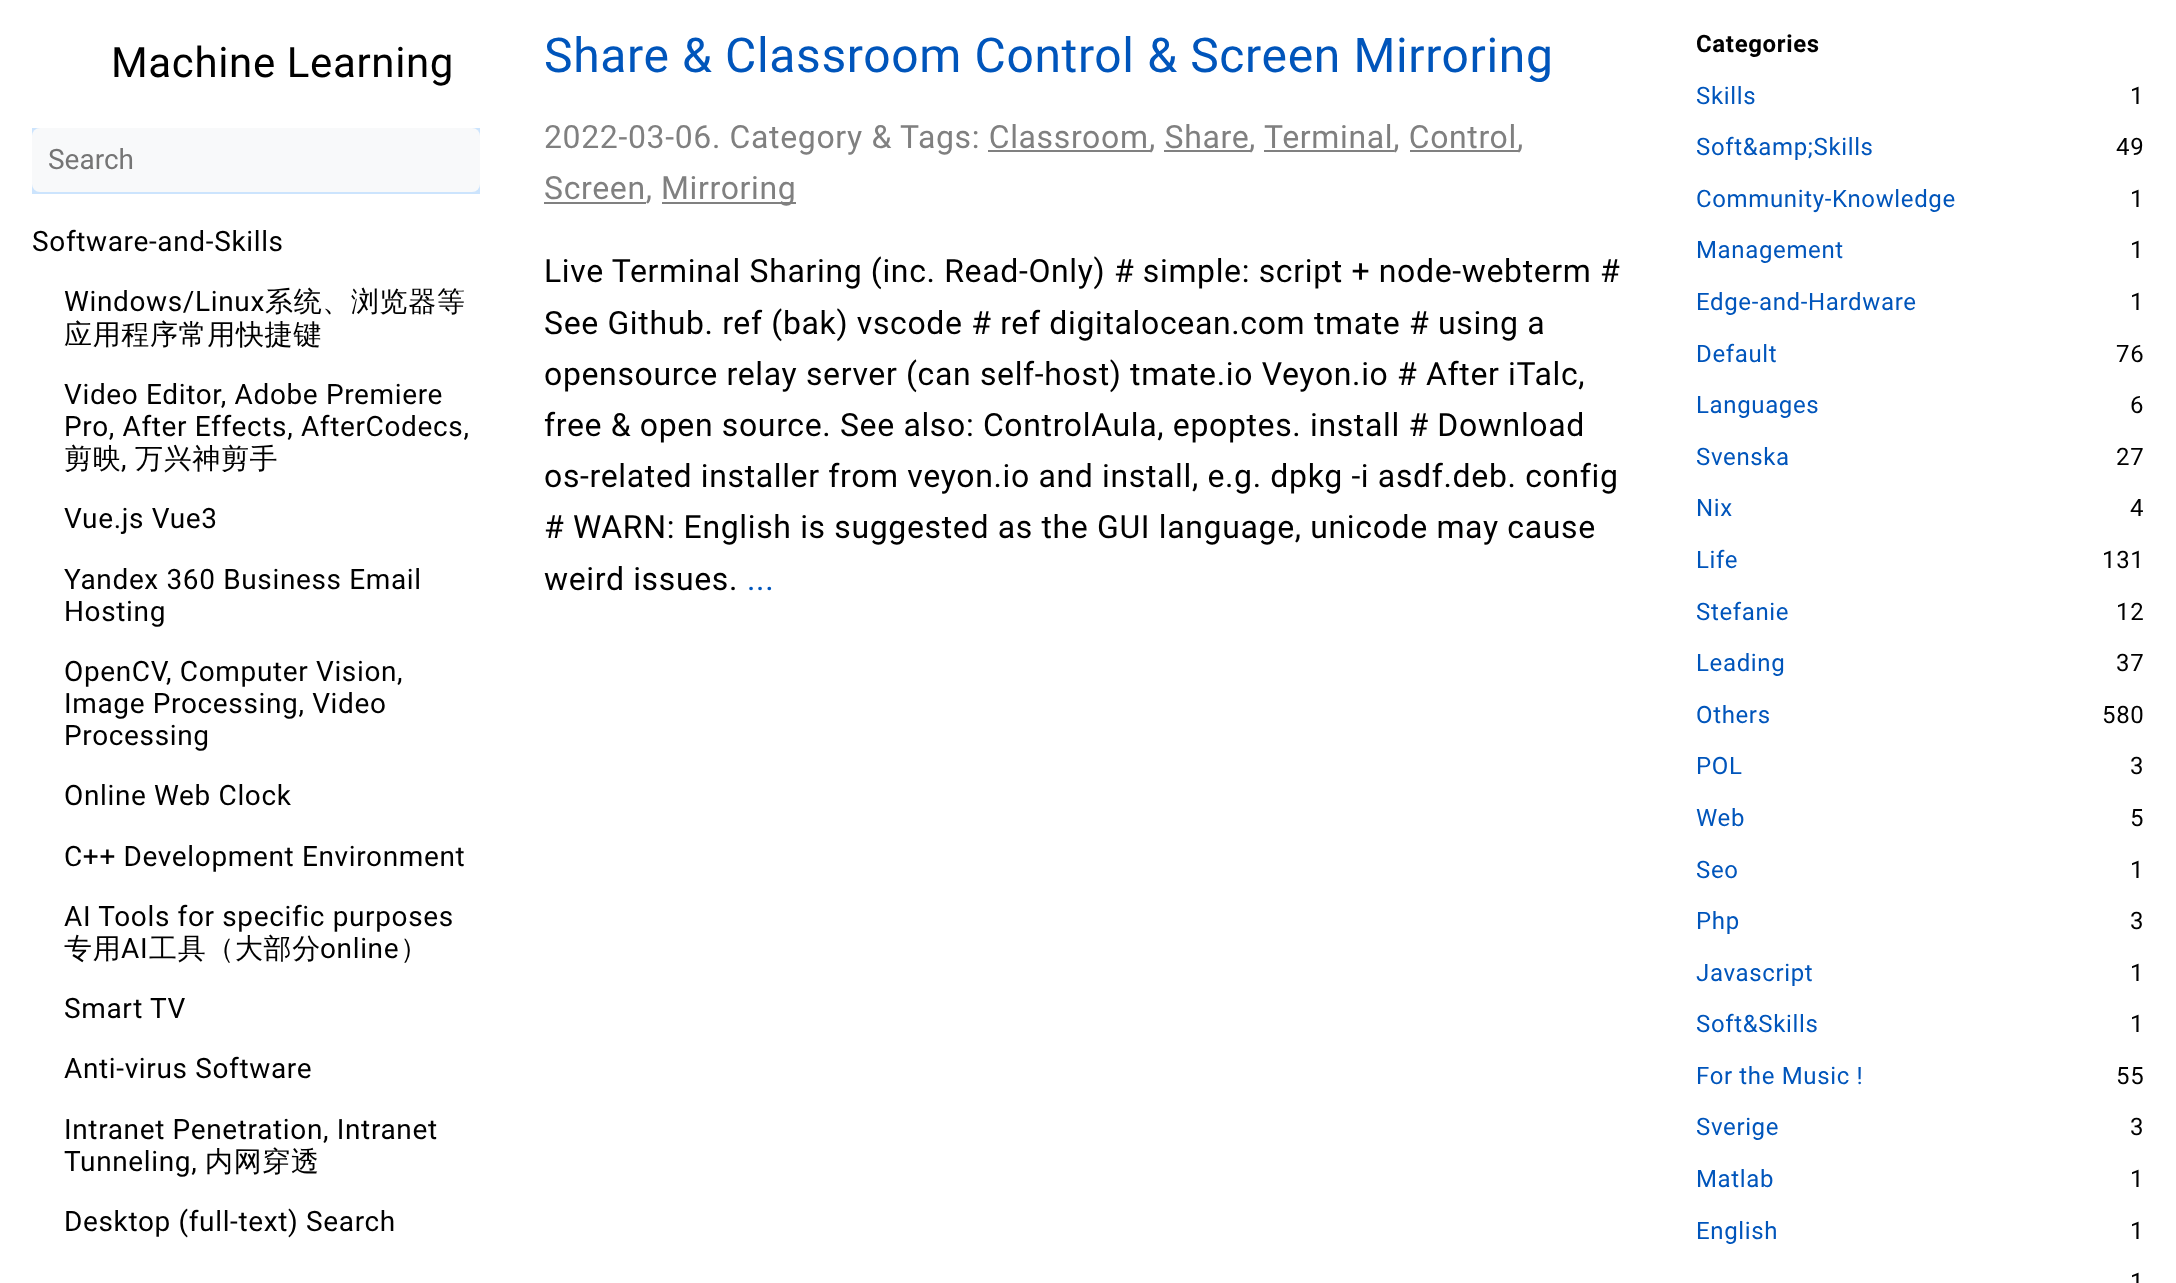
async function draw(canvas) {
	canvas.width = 2176;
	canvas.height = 1283;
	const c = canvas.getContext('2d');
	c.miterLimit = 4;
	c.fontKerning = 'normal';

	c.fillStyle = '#fff';
	c.fillRect(0, 0, 2176, 1283);
	c.letterSpacing = '0.65px';
	c.font = '42px Roboto';
	c.fillStyle = '#000';
	c.fillText('Machine Learning', 111, 77);
	c.fillStyle = '#cce4fd';
	c.fillRect(32, 128, 448, 66);
	c.fillStyle = '#f8f9fa';
	c.beginPath();
	c.roundRect(32, 128, 448, 64, 8);
	c.fill();
	c.letterSpacing = '0px';
	c.font = '28px Roboto';
	c.fillStyle = '#757575';
	c.fillText('Search', 48, 169);
	c.letterSpacing = '0.65px';
	c.fillStyle = '#000';
	c.fillText('Software-and-Skills', 32, 251);
	c.fillText('Windows/Linux', 64, 311);
	c.font = '500 28px WenQuanYi Zen Hei';
	c.fillText('系统、浏览器等', 265, 311);
	c.fillText('应用程序常用快捷键', 64, 344);
	c.font = '28px Roboto';
	c.fillText('Video Editor, Adobe Premiere', 64, 404);
	c.fillText('Pro, After Effects, AfterCodecs,', 64, 436);
	c.font = '500 28px WenQuanYi Zen Hei';
	c.fillText('剪映', 64, 468);
	c.font = '28px Roboto';
	c.fillText(',', 121, 468);
	c.font = '500 28px WenQuanYi Zen Hei';
	c.fillText('万兴神剪手', 135, 468);
	c.font = '28px Roboto';
	for (const [text, x, y] of [
		['Vue.js Vue3', 64, 528],
		['Yandex 360 Business Email', 64, 589],
		['Hosting', 64, 621],
		['OpenCV, Computer Vision,', 64, 681],
		['Image Processing, Video', 64, 713],
		['Processing', 64, 745],
		['Online Web Clock', 64, 805],
		['C++ Development Environment', 64, 866],
		['AI Tools for specific purposes', 64, 926],
	]) {
		c.fillText(text, x, y);
	}
	c.font = '500 28px WenQuanYi Zen Hei';
	c.fillText('专用', 64, 958);
	c.font = '28px Roboto';
	c.fillText('AI', 121, 958);
	c.font = '500 28px WenQuanYi Zen Hei';
	c.fillText('工具（大部分', 149, 958);
	c.font = '28px Roboto';
	c.fillText('online', 320, 958);
	c.font = '500 28px WenQuanYi Zen Hei';
	c.fillText('）', 400, 958);
	c.font = '28px Roboto';
	for (const [text, x, y] of [
		['Smart TV', 64, 1018],
		['Anti-virus Software', 64, 1078],
		['Intranet Penetration, Intranet', 64, 1139],
		['Tunneling,', 64, 1171],
	]) {
		c.fillText(text, x, y);
	}
	c.font = '500 28px WenQuanYi Zen Hei';
	c.fillText('内网穿透', 205, 1171);
	c.font = '28px Roboto';
	c.fillText('Desktop (full-text) Search', 64, 1231);
	c.font = '48px Roboto';
	c.fillStyle = '#05b';
	c.fillText('Share & Classroom Control & Screen Mirroring', 544, 72);
	c.font = '32px Roboto';
	c.fillStyle = '#808080';
	c.fillText('2022-03-06. Category & Tags: Classroom', 544, 148);
	c.fillRect(988, 150, 162, 2);
	c.fillText(', Share', 1149, 148);
	c.fillRect(1164, 150, 86, 2);
	c.fillText(',', 1249, 148);
	c.fillRect(1264, 150, 130, 2);
	c.fillText('Terminal, Control', 1264, 148);
	c.fillRect(1410, 150, 108, 2);
	c.fillText(',', 1517, 148);
	c.fillRect(544, 202, 102, 2);
	c.fillText('Screen,', 544, 199);
	c.fillRect(662, 202, 134, 2);
	c.fillText('Mirroring', 661, 199);
	c.fillStyle = '#000';
	for (const [text, x, y] of [
		['Live Terminal Sharing (inc. Read-Only) # simple: script + node-webterm #', 544, 282],
		['See Github. ref (bak) vscode # ref digitalocean.com tmate # using a', 544, 334],
		['opensource relay server (can self-host) tmate.io Veyon.io # After iTalc,', 544, 385],
		['free & open source. See also: ControlAula, epoptes. install # Download', 544, 436],
		['os-related installer from veyon.io and install, e.g. dpkg -i asdf.deb. config', 544, 487],
		['# WARN: English is suggested as the GUI language, unicode may cause', 544, 538],
		['weird issues.', 544, 590],
	]) {
		c.fillText(text, x, y);
	}
	c.fillStyle = '#05b';
	c.fillText('...', 747, 590);
	c.font = 'bold 24px Roboto';
	c.fillStyle = '#000';
	c.fillText('Categories', 1696, 52);
	c.font = '24px Roboto';
	c.fillStyle = '#05b';
	c.fillText('Skills', 1696, 104);
	c.fillStyle = '#000';
	c.fillText('1', 2130, 104);
	c.fillStyle = '#05b';
	c.fillText('Soft&amp;Skills', 1696, 155);
	c.fillStyle = '#000';
	c.fillText('49', 2116, 155);
	c.fillStyle = '#05b';
	c.fillText('Community-Knowledge', 1696, 207);
	c.fillStyle = '#000';
	c.fillText('1', 2130, 207);
	c.fillStyle = '#05b';
	c.fillText('Management', 1696, 258);
	c.fillStyle = '#000';
	c.fillText('1', 2130, 258);
	c.fillStyle = '#05b';
	c.fillText('Edge-and-Hardware', 1696, 310);
	c.fillStyle = '#000';
	c.fillText('1', 2130, 310);
	c.fillStyle = '#05b';
	c.fillText('Default', 1696, 362);
	c.fillStyle = '#000';
	c.fillText('76', 2116, 362);
	c.fillStyle = '#05b';
	c.fillText('Languages', 1696, 413);
	c.fillStyle = '#000';
	c.fillText('6', 2130, 413);
	c.fillStyle = '#05b';
	c.fillText('Svenska', 1696, 465);
	c.fillStyle = '#000';
	c.fillText('27', 2116, 465);
	c.fillStyle = '#05b';
	c.fillText('Nix', 1696, 516);
	c.fillStyle = '#000';
	c.fillText('4', 2130, 516);
	c.fillStyle = '#05b';
	c.fillText('Life', 1696, 568);
	c.fillStyle = '#000';
	c.fillText('131', 2102, 568);
	c.fillStyle = '#05b';
	c.fillText('Stefanie', 1696, 620);
	c.fillStyle = '#000';
	c.fillText('12', 2116, 620);
	c.fillStyle = '#05b';
	c.fillText('Leading', 1696, 671);
	c.fillStyle = '#000';
	c.fillText('37', 2116, 671);
	c.fillStyle = '#05b';
	c.fillText('Others', 1696, 723);
	c.fillStyle = '#000';
	c.fillText('580', 2102, 723);
	c.fillStyle = '#05b';
	c.fillText('POL', 1696, 774);
	c.fillStyle = '#000';
	c.fillText('3', 2130, 774);
	c.fillStyle = '#05b';
	c.fillText('Web', 1696, 826);
	c.fillStyle = '#000';
	c.fillText('5', 2130, 826);
	c.fillStyle = '#05b';
	c.fillText('Seo', 1696, 878);
	c.fillStyle = '#000';
	c.fillText('1', 2130, 878);
	c.fillStyle = '#05b';
	c.fillText('Php', 1696, 929);
	c.fillStyle = '#000';
	c.fillText('3', 2130, 929);
	c.fillStyle = '#05b';
	c.fillText('Javascript', 1696, 981);
	c.fillStyle = '#000';
	c.fillText('1', 2130, 981);
	c.fillStyle = '#05b';
	c.fillText('Soft&Skills', 1696, 1032);
	c.fillStyle = '#000';
	c.fillText('1', 2130, 1032);
	c.fillStyle = '#05b';
	c.fillText('For the Music !', 1696, 1084);
	c.fillStyle = '#000';
	c.fillText('55', 2116, 1084);
	c.fillStyle = '#05b';
	c.fillText('Sverige', 1696, 1135);
	c.fillStyle = '#000';
	c.fillText('3', 2130, 1135);
	c.fillStyle = '#05b';
	c.fillText('Matlab', 1696, 1187);
	c.fillStyle = '#000';
	c.fillText('1', 2130, 1187);
	c.fillStyle = '#05b';
	c.fillText('English', 1696, 1239);
	c.fillStyle = '#000';
	c.fillText('1', 2130, 1239);
	c.fillText('1', 2130, 1290);
}

draw(document.querySelector('canvas'));
